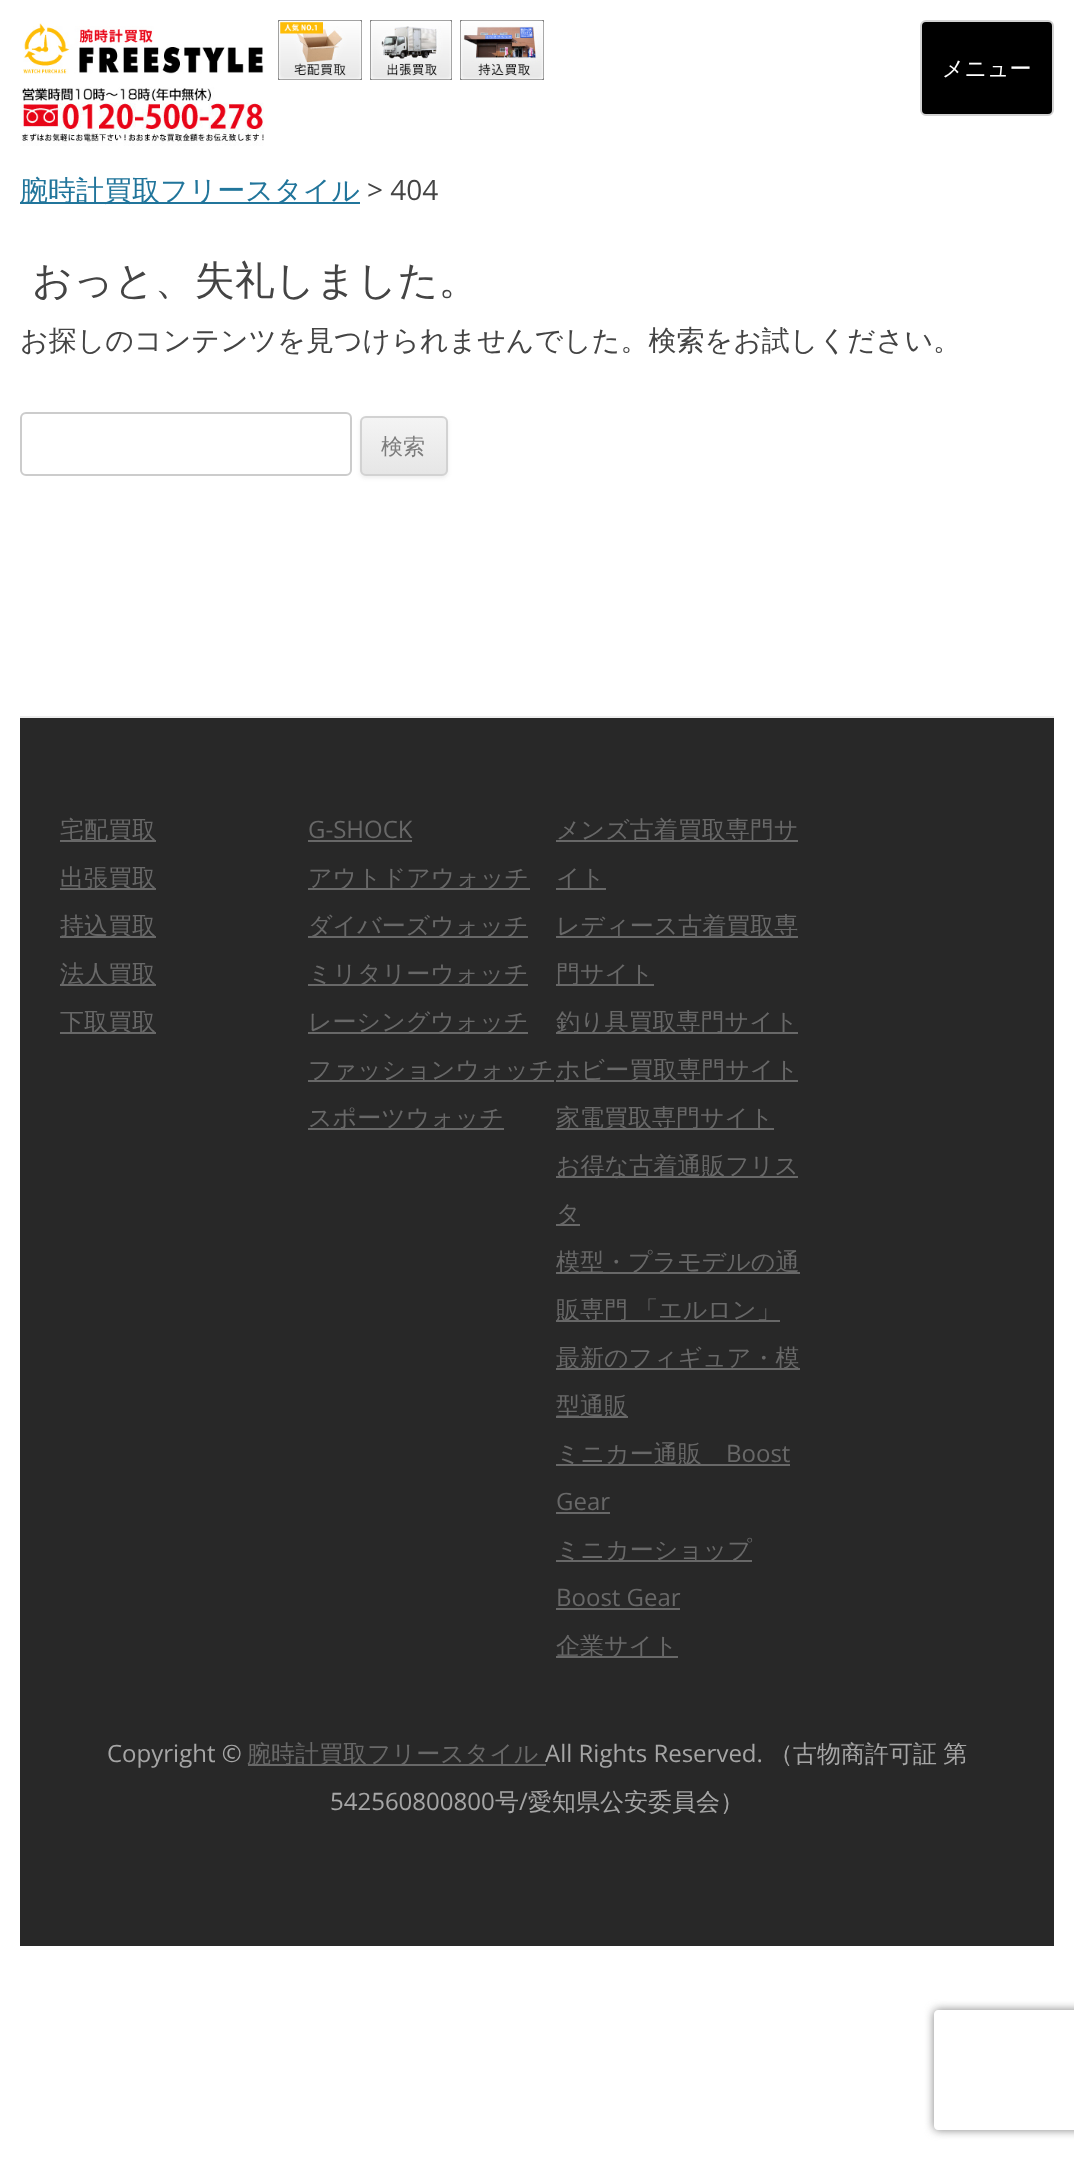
async function draw(canvas) {
	canvas.width = 1074;
	canvas.height = 2158;
	const c = canvas.getContext('2d');
	c.miterLimit = 4;
	c.fontKerning = 'normal';
	async function loadImage(src) {
		const img = new Image();
		img.src = src;
		await img.decode();
		return img;
	}
	let gradient;

	c.fillStyle = '#fff';
	c.fillRect(0, 0, 1074, 2158);
	c.drawImage(await loadImage('img1.png'), 23, 23, 241, 51);
	c.drawImage(await loadImage('img2.png'), 278, 20, 84, 60);
	c.drawImage(await loadImage('img3.png'), 370, 20, 82, 60);
	c.drawImage(await loadImage('img4.png'), 460, 20, 84, 60);
	c.drawImage(await loadImage('img5.png'), 20, 87, 244, 59);
	c.fillStyle = '#000';
	c.beginPath();
	c.roundRect(921, 21, 132, 94, 5);
	c.fill();
	c.strokeStyle = '#d2d2d2';
	c.lineWidth = 2;
	c.stroke();
	c.font = '500 22px WenQuanYi Zen Hei';
	c.fillStyle = '#fff';
	c.fillText('メニュー', 942, 76);
	c.fillStyle = '#21759b';
	c.fillRect(20, 202, 340, 2);
	c.font = '500 28px WenQuanYi Zen Hei';
	c.fillText('腕時計買取フリースタイル', 20, 200);
	c.font = '28px Open Sans';
	c.fillStyle = '#444';
	c.fillText('> 404', 367, 200);
	c.font = '500 40px WenQuanYi Zen Hei';
	c.fillText('おっと、失礼しました。', 32, 294);
	c.font = '500 28px WenQuanYi Zen Hei';
	c.fillText('お探しのコンテンツを見つけられませんでした。検索をお試しください。', 20, 350);
	c.beginPath();
	c.roundRect(21, 413, 330, 62, 5);
	c.strokeStyle = '#ccc';
	c.stroke();
	c.fillStyle = '#4040401a';
	c.filter = 'blur(2px)';
	c.beginPath();
	c.roundRect(360, 418, 88, 60, 6);
	c.fill();
	c.filter = 'none';
	c.save();
	c.beginPath();
	c.roundRect(360, 416, 88, 60, 6);
	c.clip();
	gradient = c.createLinearGradient(404, 418, 404, 474);
	gradient.addColorStop(0, '#f4f4f4');
	gradient.addColorStop(1, '#e6e6e6');
	c.fillStyle = gradient;
	c.fillRect(360, 418, 88, 56);
	c.restore();
	c.beginPath();
	c.roundRect(361, 417, 86, 58, 5);
	c.strokeStyle = '#d2d2d2';
	c.stroke();
	c.font = '500 22px WenQuanYi Zen Hei';
	c.fillStyle = '#7c7c7c';
	c.fillText('検索', 381, 454);
	for (const [x, y, w, h, color] of [
		[20, 718, 1034, 1228, '#282828'],
		[20, 716, 1034, 2, '#ededed'],
		[60, 840, 96, 2, '#686868'],
	]) {
		c.fillStyle = color;
		c.fillRect(x, y, w, h);
	}
	c.font = '500 24px WenQuanYi Zen Hei';
	c.fillText('宅配買取', 60, 838);
	c.fillRect(60, 888, 96, 2);
	c.fillText('出張買取', 60, 886);
	c.fillRect(60, 936, 96, 2);
	c.fillText('持込買取', 60, 934);
	c.fillRect(60, 984, 96, 2);
	c.fillText('法人買取', 60, 982);
	c.fillRect(60, 1032, 96, 2);
	c.fillText('下取買取', 60, 1030);
	c.font = '24px Open Sans';
	c.fillText('G-SHOCK', 308, 838);
	c.fillRect(308, 840, 104, 2);
	c.fillRect(308, 888, 222, 2);
	c.font = '500 24px WenQuanYi Zen Hei';
	c.fillText('アウトドアウォッチ', 308, 886);
	c.fillRect(308, 936, 220, 2);
	c.fillText('ダイバーズウォッチ', 308, 934);
	c.fillRect(308, 984, 220, 2);
	c.fillText('ミリタリーウォッチ', 308, 982);
	c.fillRect(308, 1032, 220, 2);
	c.fillText('レーシングウォッチ', 308, 1030);
	c.fillRect(308, 1080, 246, 2);
	c.fillText('ファッションウォッチ', 308, 1078);
	c.fillRect(308, 1128, 196, 2);
	c.fillText('スポーツウォッチ', 308, 1126);
	c.fillRect(556, 840, 242, 2);
	c.fillText('メンズ古着買取専門サ', 556, 838);
	c.fillRect(556, 888, 50, 2);
	c.fillText('イト', 556, 886);
	c.fillRect(556, 936, 242, 2);
	c.fillText('レディース古着買取専', 556, 934);
	c.fillRect(556, 984, 98, 2);
	c.fillText('門サイト', 556, 982);
	c.fillRect(556, 1032, 242, 2);
	c.fillText('釣り具買取専門サイト', 556, 1030);
	c.fillRect(556, 1080, 242, 2);
	c.fillText('ホビー買取専門サイト', 556, 1078);
	c.fillRect(556, 1128, 218, 2);
	c.fillText('家電買取専門サイト', 556, 1126);
	c.fillRect(556, 1176, 242, 2);
	c.fillText('お得な古着通販フリス', 556, 1174);
	c.fillRect(556, 1224, 24, 2);
	c.fillText('タ', 556, 1222);
	c.fillRect(556, 1272, 244, 2);
	c.fillText('模型・プラモデルの通', 556, 1270);
	c.fillRect(556, 1320, 224, 2);
	c.wordSpacing = '-1px';
	c.fillText('販専門 「エルロン」', 556, 1318);
	c.fillRect(556, 1368, 244, 2);
	c.wordSpacing = '0px';
	c.fillText('最新のフィギュア・模', 556, 1366);
	c.fillRect(556, 1416, 72, 2);
	c.fillText('型通販', 556, 1414);
	c.fillRect(556, 1464, 234, 2);
	c.fillText('ミニカー通販', 556, 1462);
	c.font = '24px Open Sans';
	c.fillText('Boost', 726, 1462);
	c.fillText('Gear', 556, 1510);
	c.fillRect(556, 1512, 54, 2);
	c.fillRect(556, 1560, 196, 2);
	c.font = '500 24px WenQuanYi Zen Hei';
	c.fillText('ミニカーショップ', 556, 1558);
	c.font = '24px Open Sans';
	c.fillText('Boost Gear', 556, 1606);
	c.fillRect(556, 1608, 124, 2);
	c.fillRect(556, 1656, 122, 2);
	c.font = '500 24px WenQuanYi Zen Hei';
	c.fillText('企業サイト', 556, 1654);
	c.font = '24px Open Sans';
	c.fillStyle = '#a6a6a6';
	c.fillText('Copyright ©', 107, 1762);
	c.fillStyle = '#686868';
	c.fillRect(248, 1764, 298, 2);
	c.font = '500 24px WenQuanYi Zen Hei';
	c.fillText('腕時計買取フリースタイル', 247, 1762);
	c.font = '24px Open Sans';
	c.fillStyle = '#a6a6a6';
	c.fillText('All Rights Reserved.', 545, 1762);
	c.wordSpacing = '-1px';
	c.font = '500 24px WenQuanYi Zen Hei';
	c.fillText('（古物商許可証 第', 769, 1762);
	c.wordSpacing = '0px';
	c.font = '24px Open Sans';
	c.fillText('542560800800', 330, 1810);
	c.font = '500 24px WenQuanYi Zen Hei';
	c.fillText('号', 495, 1810);
	c.font = '24px Open Sans';
	c.fillText('/', 519, 1810);
	c.font = '500 24px WenQuanYi Zen Hei';
	c.fillText('愛知県公安委員会）', 528, 1810);
	c.save();
	c.beginPath();
	c.moveTo(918, 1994);
	c.lineTo(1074, 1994);
	c.lineTo(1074, 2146);
	c.lineTo(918, 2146);
	c.closePath();
	c.moveTo(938, 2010);
	c.lineTo(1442, 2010);
	c.bezierCurveTo(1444, 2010, 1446, 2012, 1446, 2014);
	c.lineTo(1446, 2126);
	c.bezierCurveTo(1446, 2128, 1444, 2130, 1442, 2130);
	c.lineTo(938, 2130);
	c.bezierCurveTo(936, 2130, 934, 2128, 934, 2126);
	c.lineTo(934, 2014);
	c.bezierCurveTo(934, 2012, 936, 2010, 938, 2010);
	c.closePath();
	c.clip('evenodd');
	c.fillStyle = '#808080';
	c.filter = 'blur(5px)';
	c.beginPath();
	c.roundRect(934, 2010, 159, 120, 4);
	c.fill();
	c.filter = 'none';
	c.restore();
}

draw(document.querySelector('canvas'));
